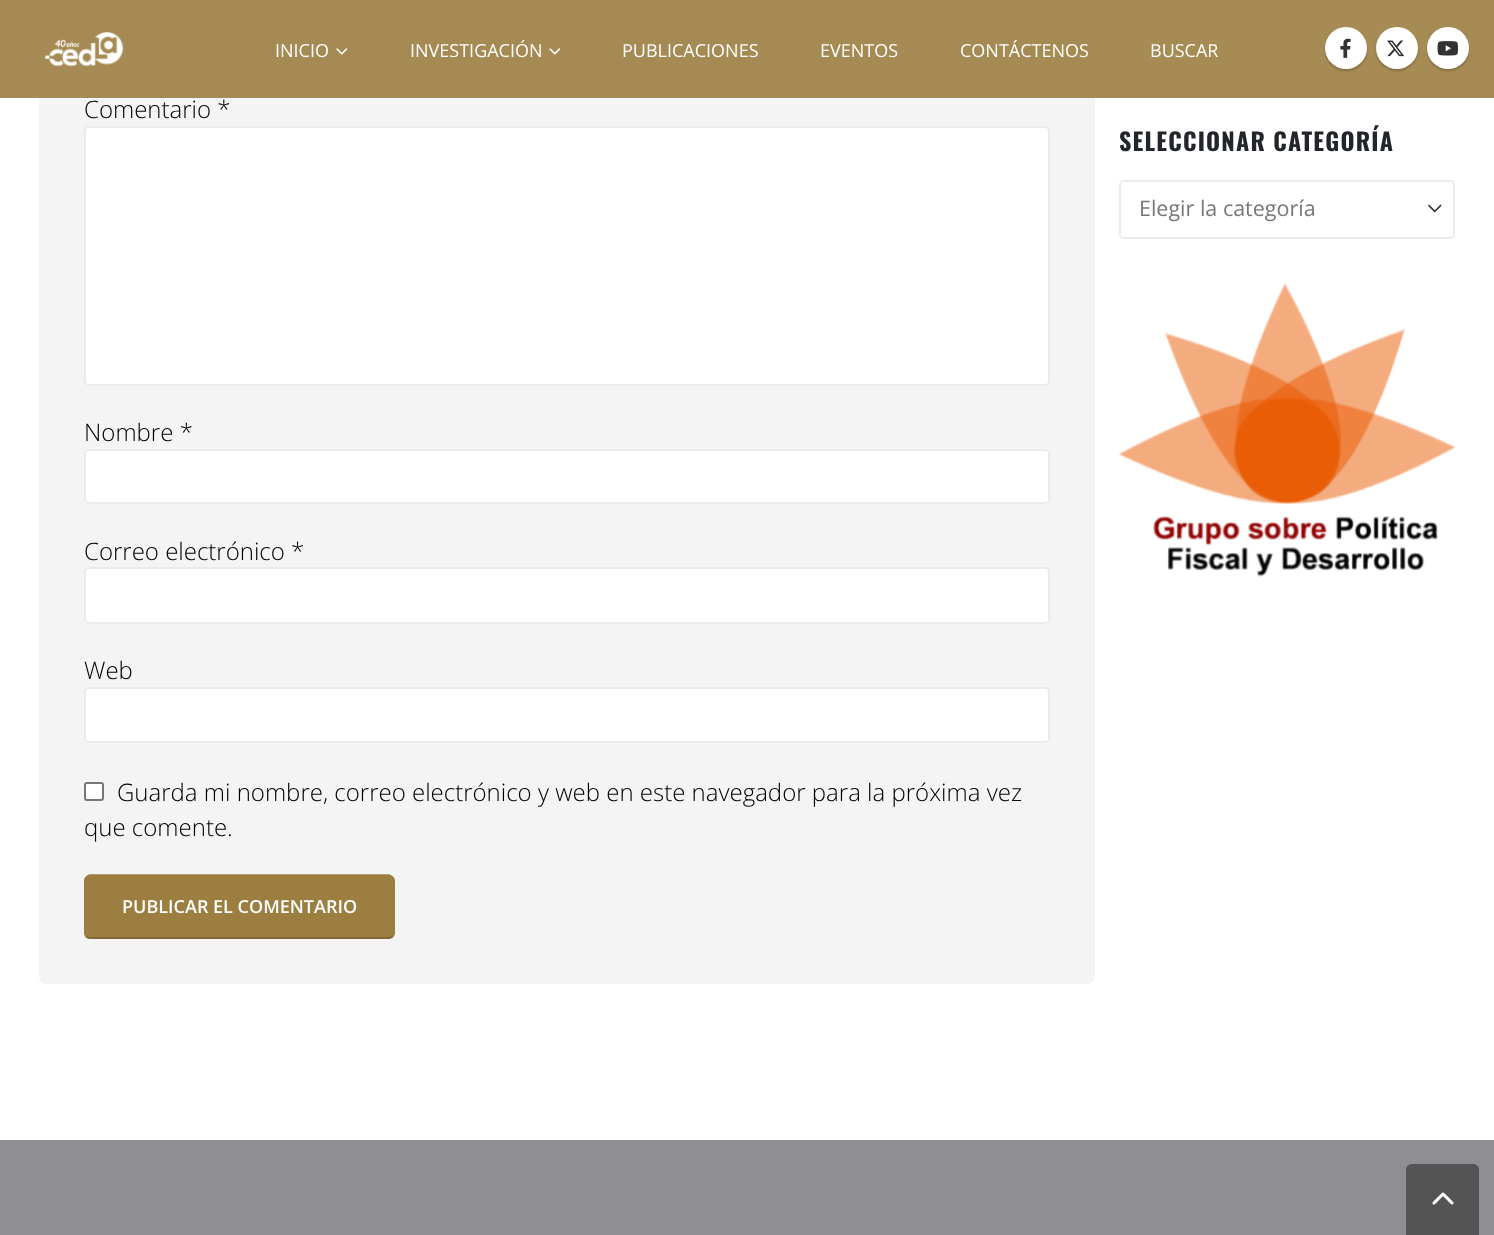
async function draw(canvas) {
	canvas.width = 1494;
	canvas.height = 1235;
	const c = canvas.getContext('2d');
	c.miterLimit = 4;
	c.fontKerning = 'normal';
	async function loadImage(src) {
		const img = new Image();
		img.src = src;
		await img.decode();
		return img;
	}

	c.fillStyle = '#fff';
	c.fillRect(0, 0, 1494, 1235);
	c.fillStyle = '#f4f4f4';
	c.beginPath();
	c.roundRect(39, -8, 1056, 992, 8);
	c.fill();
	c.fillStyle = '#9c7e41e6';
	c.fillRect(0, 0, 1494, 98);
	c.drawImage(await loadImage('img1.png'), 44, 32, 80, 35);
	c.font = '18px Open Sans';
	c.fillStyle = '#fff';
	c.fillText('INICIO', 275, 57);
	c.drawImage(await loadImage('img2.png'), 336, 48, 12, 7);
	c.fillText('INVESTIGACIÓN', 410, 57);
	c.drawImage(await loadImage('img2.png'), 549, 48, 12, 7);
	for (const [text, x, y] of [
		['PUBLICACIONES', 622, 57],
		['EVENTOS', 820, 57],
		['CONTÁCTENOS', 960, 57],
		['BUSCAR', 1150, 57],
	]) {
		c.fillText(text, x, y);
	}
	c.fillStyle = '#00000033';
	c.filter = 'blur(1px)';
	c.beginPath();
	c.roundRect(1325, 29, 42, 42, 21);
	c.fill();
	c.filter = 'none';
	c.fillStyle = '#fff';
	c.beginPath();
	c.arc(1346, 48, 21, 0, 2 * Math.PI);
	c.fill();
	c.drawImage(await loadImage('img3.png'), 1340, 38, 11, 20);
	c.fillStyle = '#00000033';
	c.filter = 'blur(1px)';
	c.beginPath();
	c.roundRect(1376, 29, 42, 42, 21);
	c.fill();
	c.filter = 'none';
	c.fillStyle = '#fff';
	c.beginPath();
	c.arc(1397, 48, 21, 0, 2 * Math.PI);
	c.fill();
	c.drawImage(await loadImage('img4.png'), 1387, 40, 18, 17);
	c.fillStyle = '#00000033';
	c.filter = 'blur(1px)';
	c.beginPath();
	c.roundRect(1427, 29, 42, 42, 21);
	c.fill();
	c.filter = 'none';
	c.fillStyle = '#fff';
	c.beginPath();
	c.arc(1448, 48, 21, 0, 2 * Math.PI);
	c.fill();
	c.drawImage(await loadImage('img5.png'), 1437, 41, 22, 15);
	c.font = '300 24px Open Sans';
	c.fillStyle = '#000';
	c.fillText('Comentario *', 84, 118);
	c.fillStyle = '#fff';
	c.beginPath();
	c.roundRect(84, 126, 966, 260, 5);
	c.fill();
	c.beginPath();
	c.roundRect(85, 127, 964, 258, 4);
	c.strokeStyle = '#00000014';
	c.lineWidth = 2;
	c.stroke();
	c.fillStyle = '#000';
	c.fillText('Nombre *', 84, 441);
	c.fillStyle = '#fff';
	c.beginPath();
	c.roundRect(84, 449, 966, 55, 5);
	c.fill();
	c.beginPath();
	c.roundRect(85, 450, 964, 53, 4);
	c.stroke();
	c.fillStyle = '#000';
	c.fillText('Correo electrónico *', 84, 560);
	c.fillStyle = '#fff';
	c.beginPath();
	c.roundRect(84, 567, 966, 57, 5);
	c.fill();
	c.beginPath();
	c.roundRect(85, 568, 964, 55, 4);
	c.stroke();
	c.fillStyle = '#000';
	c.fillText('Web', 84, 679);
	c.fillStyle = '#fff';
	c.beginPath();
	c.roundRect(84, 687, 966, 56, 5);
	c.fill();
	c.beginPath();
	c.roundRect(85, 688, 964, 54, 4);
	c.stroke();
	c.beginPath();
	c.roundRect(85, 783, 18, 17, 2);
	c.fill();
	c.strokeStyle = '#767676';
	c.stroke();
	c.fillStyle = '#000';
	c.fillText('Guarda mi nombre, correo electrónico y web en este navegador para la próxima vez', 117, 801);
	c.fillText('que comente.', 84, 836);
	c.fillStyle = '#9c7e41';
	c.beginPath();
	c.roundRect(84, 875, 311, 64, 6);
	c.fill();
	c.beginPath();
	c.moveTo(392, 936.5);
	c.bezierCurveTo(391, 937.5, 390, 938, 388.5, 938);
	c.lineTo(90, 938);
	c.bezierCurveTo(88.5, 938, 87.5, 937.5, 86.5, 936.5);
	c.strokeStyle = '#786133';
	c.lineWidth = 1.5;
	c.stroke();
	c.beginPath();
	c.moveTo(86.5, 936.5);
	c.bezierCurveTo(85.5, 935.5, 85, 934.5, 85, 933);
	c.lineTo(85, 880.5);
	c.bezierCurveTo(85, 879, 85.5, 878, 86.5, 877);
	c.bezierCurveTo(87.5, 876, 88.5, 875, 90, 875);
	c.lineTo(388.5, 875);
	c.bezierCurveTo(390, 875, 391, 876, 392, 877);
	c.bezierCurveTo(393, 878, 394, 879, 394, 880.5);
	c.lineTo(394, 933);
	c.bezierCurveTo(394, 934.5, 393, 935.5, 392, 936.5);
	c.strokeStyle = '#9c7e41';
	c.stroke();
	c.font = '600 18px Open Sans';
	c.fillStyle = '#fff';
	c.fillText('PUBLICAR EL COMENTARIO', 122, 913);
	c.letterSpacing = '1.2px';
	c.font = 'bold 24px Oswald';
	c.fillStyle = '#222529';
	c.fillText('SELECCIONAR CATEGORÍA', 1119, 151);
	c.drawImage(await loadImage('img6.png'), 1428, 204, 14, 9);
	c.beginPath();
	c.roundRect(1120, 181, 334, 57, 4);
	c.strokeStyle = '#ebebeb';
	c.lineWidth = 2;
	c.stroke();
	c.letterSpacing = '0px';
	c.font = '21.5px Open Sans';
	c.fillStyle = '#777';
	c.fillText('Elegir la categoría', 1139, 216);
	c.drawImage(await loadImage('img7.png'), 1119, 283, 336, 294);
	c.fillStyle = '#8e8e93';
	c.fillRect(0, 1140, 1494, 95);
	c.fillStyle = '#545455';
	c.beginPath();
	c.moveTo(1412, 1164);
	c.lineTo(1473, 1164);
	c.bezierCurveTo(1476.5, 1164, 1479, 1166.5, 1479, 1170);
	c.lineTo(1479, 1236);
	c.lineTo(1406, 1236);
	c.lineTo(1406, 1170);
	c.bezierCurveTo(1406, 1166.5, 1408.5, 1164, 1412, 1164);
	c.closePath();
	c.fill();
	c.drawImage(await loadImage('img8.png'), 1432, 1192, 22, 13);
}

draw(document.querySelector('canvas'));
